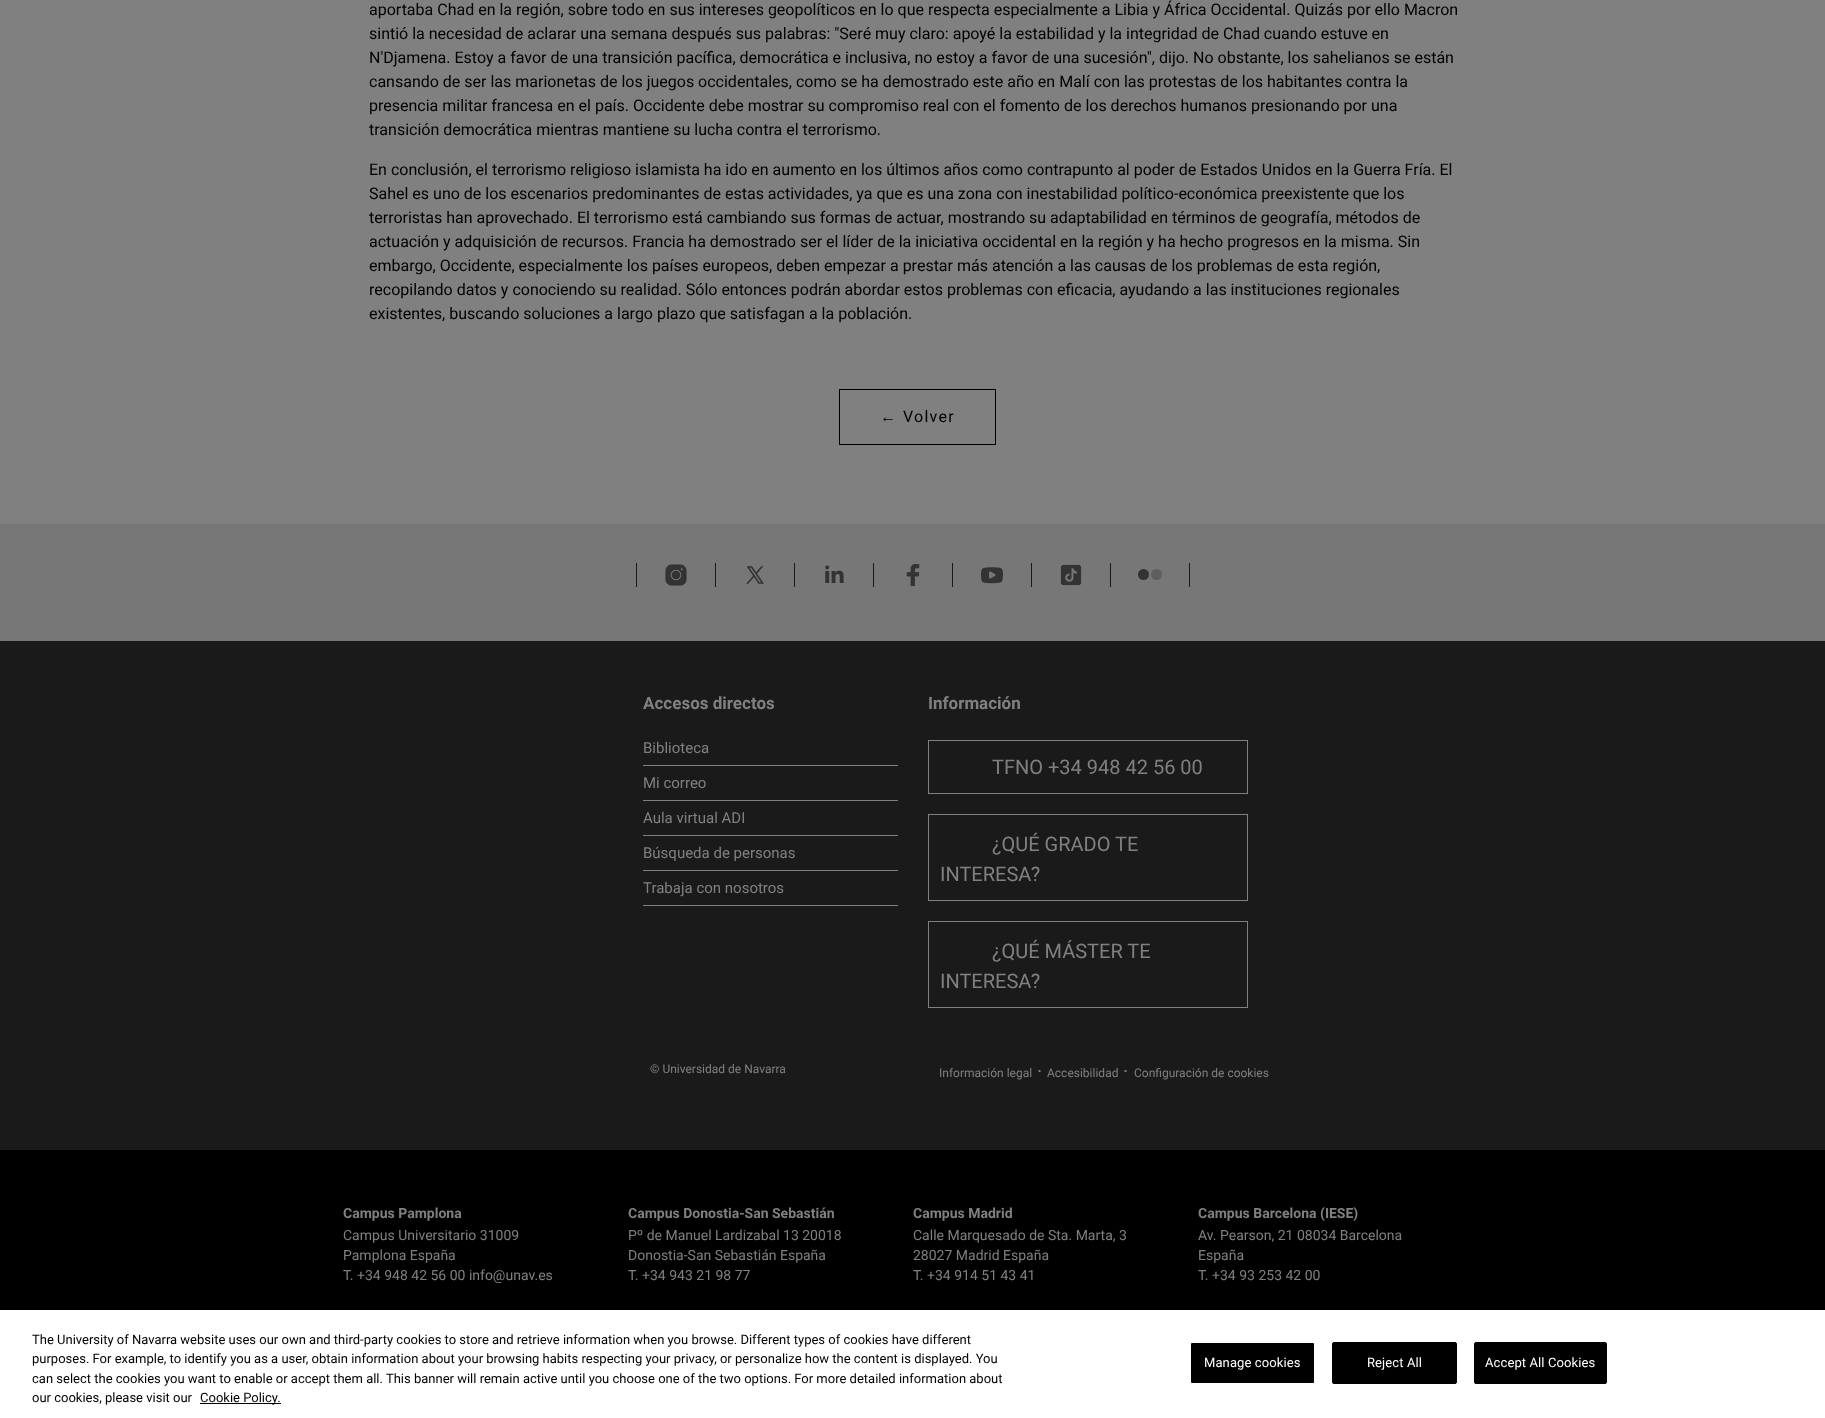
async function draw(canvas) {
	canvas.width = 1825;
	canvas.height = 1418;
	const c = canvas.getContext('2d');
	c.miterLimit = 4;
	c.fontKerning = 'normal';
	async function loadImage(src) {
		const img = new Image();
		img.src = src;
		await img.decode();
		return img;
	}

	c.fillStyle = '#808080';
	c.fillRect(0, 0, 1825, 1418);
	c.font = '16px Roboto';
	c.fillStyle = '#000';
	for (const [text, x, y] of [
		['aportaba Chad en la región, sobre todo en sus intereses geopolíticos en lo que respecta especialmente a Libia y África Occidental. Quizás por ello Macron', 369, 15],
		['sintió la necesidad de aclarar una semana después sus palabras: "Seré muy claro: apoyé la estabilidad y la integridad de Chad cuando estuve en', 369, 39],
		['N\'Djamena. Estoy a favor de una transición pacífica, democrática e inclusiva, no estoy a favor de una sucesión", dijo. No obstante, los sahelianos se están', 369, 63],
		['cansando de ser las marionetas de los juegos occidentales, como se ha demostrado este año en Malí con las protestas de los habitantes contra la', 369, 87],
		['presencia militar francesa en el país. Occidente debe mostrar su compromiso real con el fomento de los derechos humanos presionando por una', 369, 111],
		['transición democrática mientras mantiene su lucha contra el terrorismo.', 369, 135],
		['En conclusión, el terrorismo religioso islamista ha ido en aumento en los últimos años como contrapunto al poder de Estados Unidos en la Guerra Fría. El', 369, 175],
		['Sahel es uno de los escenarios predominantes de estas actividades, ya que es una zona con inestabilidad político-económica preexistente que los', 369, 199],
		['terroristas han aprovechado. El terrorismo está cambiando sus formas de actuar, mostrando su adaptabilidad en términos de geografía, métodos de', 369, 223],
		['actuación y adquisición de recursos. Francia ha demostrado ser el líder de la iniciativa occidental en la región y ha hecho progresos en la misma. Sin', 369, 247],
		['embargo, Occidente, especialmente los países europeos, deben empezar a prestar más atención a las causas de los problemas de esta región,', 369, 271],
		['recopilando datos y conociendo su realidad. Sólo entonces podrán abordar estos problemas con eficacia, ayudando a las instituciones regionales', 369, 295],
		['existentes, buscando soluciones a largo plazo que satisfagan a la población.', 369, 319],
	]) {
		c.fillText(text, x, y);
	}
	c.strokeStyle = '#000';
	c.strokeRect(839.5, 389.5, 156, 55);
	c.letterSpacing = '1.25px';
	c.font = '16px Liberation Serif';
	c.fillText('←', 880, 422);
	c.font = '16px Roboto';
	c.fillText('Volver', 903, 422);
	for (const [x, y, w, h, color] of [
		[0, 524, 1825, 117, '#777'],
		[715, 563, 1, 24, '#1a1a1a'],
		[636, 563, 1, 24, '#1a1a1a'],
	]) {
		c.fillStyle = color;
		c.fillRect(x, y, w, h);
	}
	c.drawImage(await loadImage('img1.png'), 665, 564, 22, 22);
	c.fillRect(794, 563, 1, 24);
	c.drawImage(await loadImage('img2.png'), 746, 566, 18, 18);
	c.fillRect(873, 563, 1, 24);
	c.drawImage(await loadImage('img3.png'), 825, 565, 19, 18);
	c.fillRect(952, 563, 1, 24);
	c.drawImage(await loadImage('img4.png'), 906, 564, 14, 23);
	c.fillRect(1031, 563, 1, 24);
	c.drawImage(await loadImage('img5.png'), 981, 567, 22, 17);
	c.fillRect(1110, 563, 1, 24);
	c.drawImage(await loadImage('img6.png'), 1060, 564, 22, 22);
	c.fillRect(1189, 563, 1, 24);
	c.fillStyle = '#333';
	c.beginPath();
	c.arc(1143.5, 574.5, 5.5, 0, 2 * Math.PI);
	c.fill();
	c.fillStyle = '#5f5f5f';
	c.beginPath();
	c.arc(1156.5, 574.5, 5.5, 0, 2 * Math.PI);
	c.fill();
	c.fillStyle = '#1a1a1a';
	c.fillRect(0, 641, 1825, 509);
	c.letterSpacing = '0px';
	c.font = 'bold 17px Roboto';
	c.fillStyle = '#808080';
	c.fillText('Accesos directos', 643, 709);
	c.fillRect(643, 765, 255, 1);
	c.font = '15px Roboto';
	c.fillText('Biblioteca', 643, 753);
	c.fillRect(643, 800, 255, 1);
	c.fillText('Mi correo', 643, 788);
	c.fillRect(643, 835, 255, 1);
	c.fillText('Aula virtual ADI', 643, 823);
	c.fillRect(643, 870, 255, 1);
	c.fillText('Búsqueda de personas', 643, 858);
	c.fillRect(643, 905, 255, 1);
	c.fillText('Trabaja con nosotros', 643, 893);
	c.font = 'bold 17px Roboto';
	c.fillText('Información', 928, 709);
	c.strokeStyle = '#808080';
	c.strokeRect(928.5, 740.5, 319, 53);
	c.font = '20px Roboto';
	c.fillText('TFNO +34 948 42 56 00', 992, 774);
	c.strokeRect(928.5, 814.5, 319, 86);
	c.fillText('¿QUÉ GRADO TE', 992, 851);
	c.fillText('INTERESA?', 940, 881);
	c.strokeRect(928.5, 921.5, 319, 86);
	c.fillText('¿QUÉ MÁSTER TE', 992, 958);
	c.fillText('INTERESA?', 940, 988);
	c.font = '12px Roboto';
	c.fillText('© Universidad de Navarra', 650, 1073);
	c.fillText('Información legal', 939, 1077);
	c.font = '20px Roboto';
	c.fillText('.', 1037, 1072);
	c.font = '12px Roboto';
	c.fillText('Accesibilidad', 1047, 1077);
	c.font = '20px Roboto';
	c.fillText('.', 1123, 1072);
	c.font = '12px Roboto';
	c.fillText('Configuración de cookies', 1134, 1077);
	c.fillStyle = '#000';
	c.fillRect(0, 1150, 1825, 160);
	c.font = 'bold 14px Roboto';
	c.fillStyle = '#808080';
	c.fillText('Campus Pamplona', 343, 1218);
	c.font = '14px Roboto';
	for (const [text, x, y] of [
		['Campus Universitario 31009', 343, 1240],
		['Pamplona España', 343, 1260],
		['T. +34 948 42 56 00 info@unav.es', 343, 1280],
	]) {
		c.fillText(text, x, y);
	}
	c.font = 'bold 14px Roboto';
	c.fillText('Campus Donostia-San Sebastián', 628, 1218);
	c.font = '14px Roboto';
	for (const [text, x, y] of [
		['Pº de Manuel Lardizabal 13 20018', 628, 1240],
		['Donostia-San Sebastián España', 628, 1260],
		['T. +34 943 21 98 77', 628, 1280],
	]) {
		c.fillText(text, x, y);
	}
	c.font = 'bold 14px Roboto';
	c.fillText('Campus Madrid', 913, 1218);
	c.font = '14px Roboto';
	for (const [text, x, y] of [
		['Calle Marquesado de Sta. Marta, 3', 913, 1240],
		['28027 Madrid España', 913, 1260],
		['T. +34 914 51 43 41', 913, 1280],
	]) {
		c.fillText(text, x, y);
	}
	c.font = 'bold 14px Roboto';
	c.fillText('Campus Barcelona (IESE)', 1198, 1218);
	c.font = '14px Roboto';
	for (const [text, x, y] of [
		['Av. Pearson, 21 08034 Barcelona', 1198, 1240],
		['España', 1198, 1260],
		['T. +34 93 253 42 00', 1198, 1280],
	]) {
		c.fillText(text, x, y);
	}
	c.fillStyle = '#fff';
	c.fillRect(0, 1310, 1825, 108);
	c.font = '13px Roboto';
	c.fillStyle = '#000';
	for (const [text, x, y] of [
		['The University of Navarra website uses our own and third-party cookies to store and retrieve information when you browse. Different types of cookies have different', 32, 1344],
		['purposes. For example, to identify you as a user, obtain information about your browsing habits respecting your privacy, or personalize how the content is displayed. You', 32, 1363],
		['can select the cookies you want to enable or accept them all. This banner will remain active until you choose one of the two options. For more detailed information about', 32, 1383],
		['our cookies, please visit our', 32, 1402],
	]) {
		c.fillText(text, x, y);
	}
	c.fillRect(200, 1403, 81, 1);
	c.fillText('Cookie Policy.', 200, 1402);
	c.beginPath();
	c.roundRect(1190.5, 1342.5, 124, 41, 1.5);
	c.fill();
	c.strokeStyle = '#fff';
	c.stroke();
	c.letterSpacing = '0.1px';
	c.fillStyle = '#fff';
	c.fillText('Manage cookies', 1204, 1367);
	c.fillStyle = '#000';
	c.beginPath();
	c.roundRect(1332.5, 1342.5, 124, 41, 1.5);
	c.fill();
	c.strokeStyle = '#000';
	c.stroke();
	c.fillStyle = '#fff';
	c.fillText('Reject All', 1367, 1367);
	c.fillStyle = '#000';
	c.beginPath();
	c.roundRect(1474.5, 1342.5, 132, 41, 1.5);
	c.fill();
	c.stroke();
	c.fillStyle = '#fff';
	c.fillText('Accept All Cookies', 1485, 1367);
}

draw(document.querySelector('canvas'));
